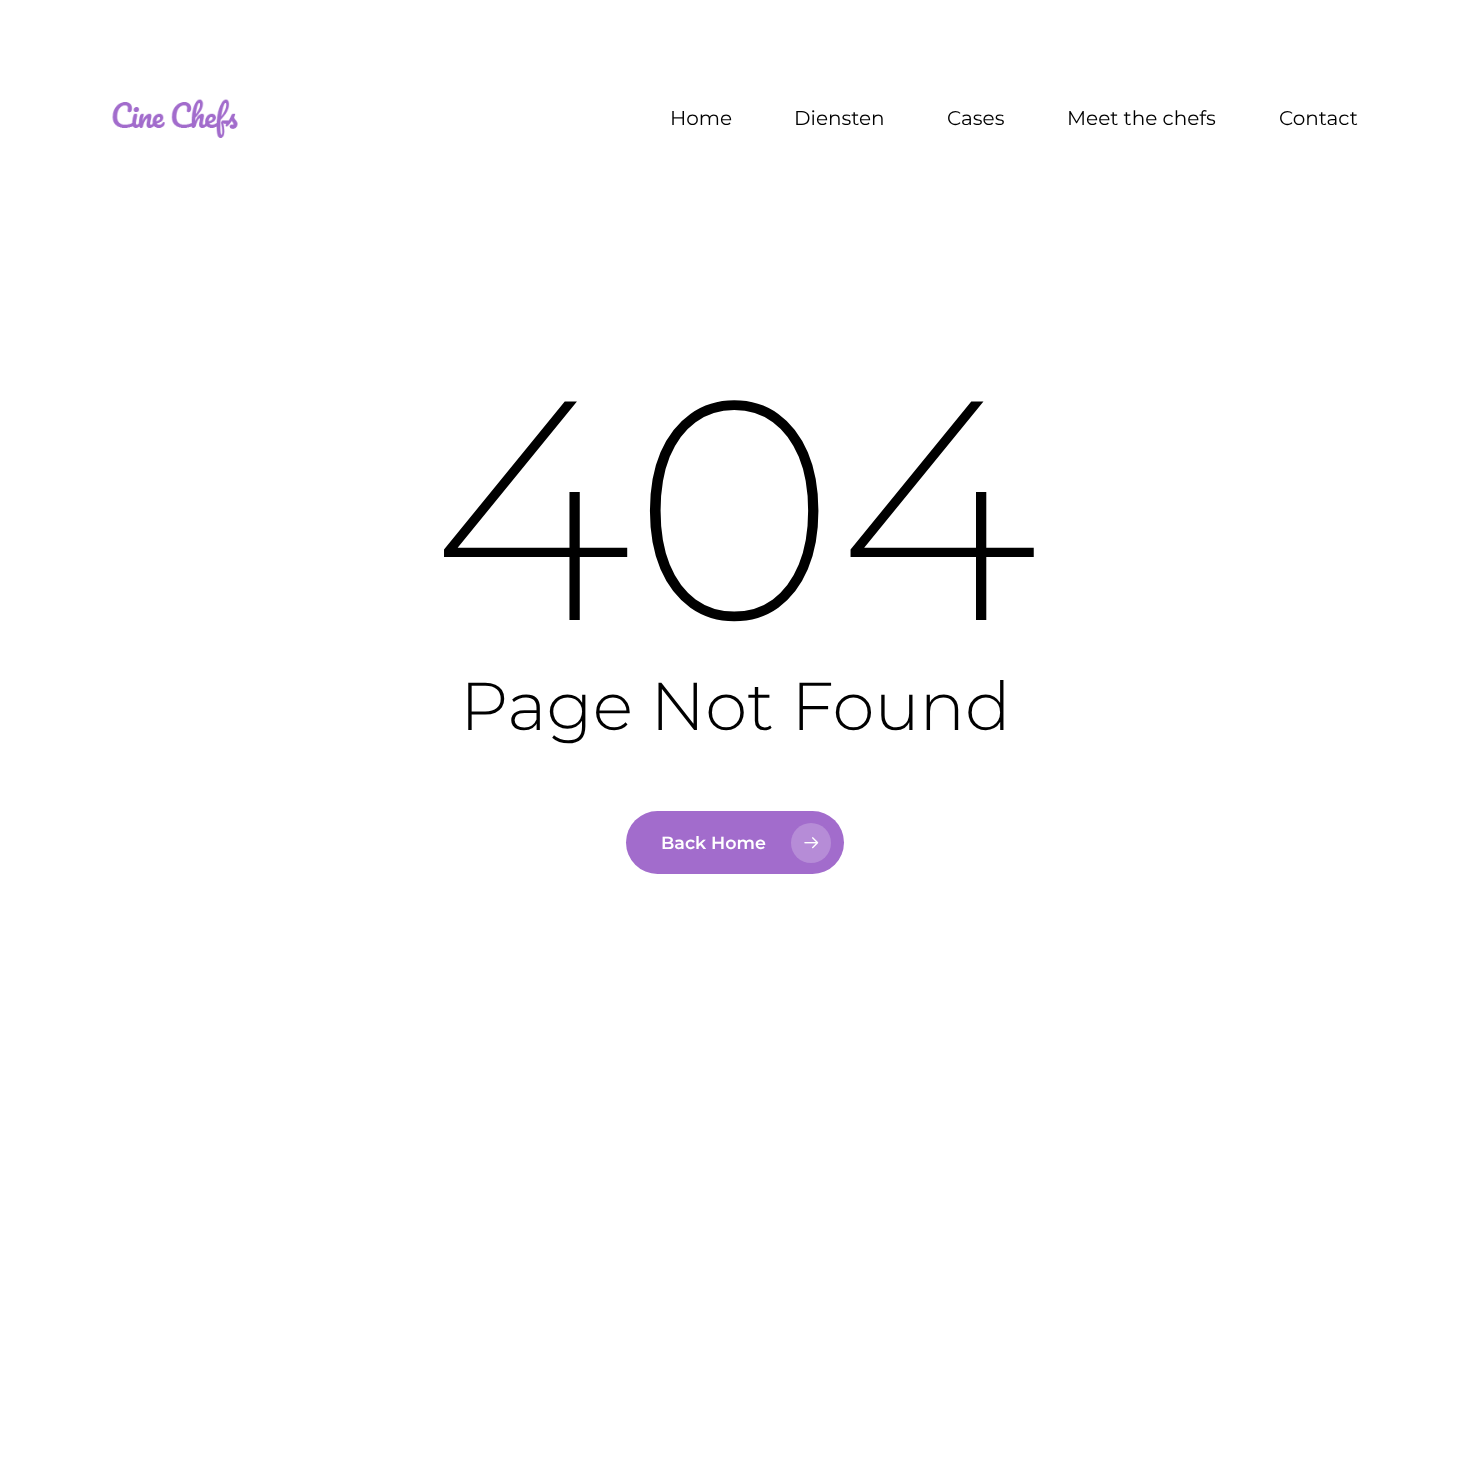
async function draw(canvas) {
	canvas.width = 1470;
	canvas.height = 1472;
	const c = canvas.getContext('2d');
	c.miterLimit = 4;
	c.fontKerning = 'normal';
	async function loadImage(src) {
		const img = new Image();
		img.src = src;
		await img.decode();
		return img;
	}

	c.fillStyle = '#fff';
	c.fillRect(0, 0, 1470, 1472);
	c.drawImage(await loadImage('img1.png'), 112, 99, 126, 39);
	c.font = '20px Montserrat';
	c.fillStyle = '#000';
	for (const [text, x, y] of [
		['Home', 670, 125],
		['Diensten', 794, 125],
		['Cases', 947, 125],
		['Meet the chefs', 1067, 125],
		['Contact', 1279, 125],
	]) {
		c.fillText(text, x, y);
	}
	c.font = '200 312px Montserrat';
	c.fillText('404', 430, 620);
	c.font = '300 67.5px Montserrat';
	c.fillText('Page Not Found', 460, 730);
	c.fillStyle = '#a26ccc';
	c.beginPath();
	c.roundRect(626, 811, 218, 63, 31.5);
	c.fill();
	c.font = '600 17.5px Montserrat';
	c.fillStyle = '#fff';
	c.fillText('Back Home', 661, 849);
	c.fillStyle = '#b68cd7';
	c.beginPath();
	c.arc(811, 843, 20, 0, 2 * Math.PI);
	c.fill();
	c.drawImage(await loadImage('img2.png'), 804, 837, 15, 12);
}

draw(document.querySelector('canvas'));
